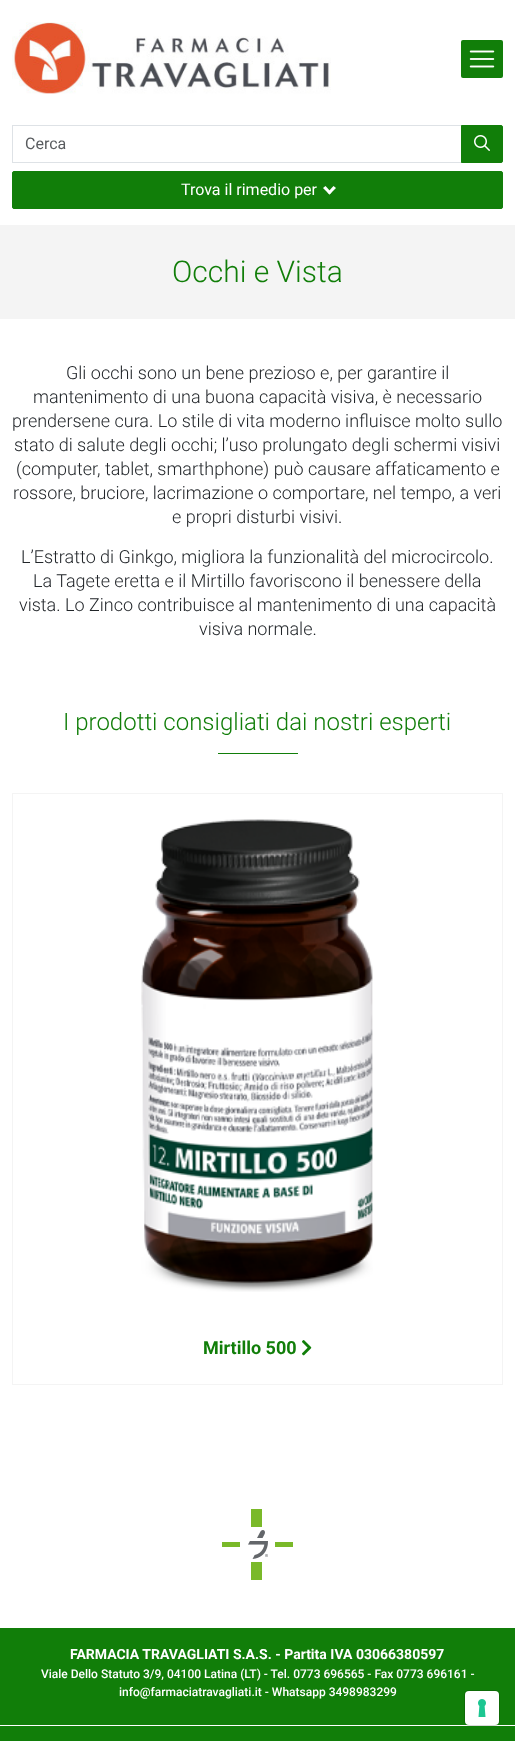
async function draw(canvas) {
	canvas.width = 515;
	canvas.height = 1741;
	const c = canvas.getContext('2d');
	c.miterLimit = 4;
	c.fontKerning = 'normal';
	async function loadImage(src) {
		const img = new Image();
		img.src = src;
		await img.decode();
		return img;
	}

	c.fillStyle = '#fff';
	c.fillRect(0, 0, 515, 1741);
	c.drawImage(await loadImage('img1.png'), 12, 22, 319, 72);
	c.fillStyle = '#117e09';
	c.beginPath();
	c.roundRect(461, 40, 42, 38, 2);
	c.fill();
	c.drawImage(await loadImage('img2.png'), 469, 50, 26, 18);
	c.strokeStyle = '#dee2e6';
	c.strokeRect(12.5, 125.5, 449, 37);
	c.font = '16px Roboto';
	c.fillStyle = '#595c5f';
	c.fillText('Cerca', 25, 149);
	c.fillStyle = '#117e09';
	c.beginPath();
	c.roundRect(461.5, 125.5, 41, 37, [0, 1.5, 1.5, 0]);
	c.fill();
	c.strokeStyle = '#117e09';
	c.stroke();
	c.drawImage(await loadImage('img3.png'), 474, 135, 16, 16);
	c.beginPath();
	c.roundRect(12.5, 171.5, 490, 37, 1.5);
	c.fill();
	c.stroke();
	c.fillStyle = '#fff';
	c.fillText('Trova il rimedio per', 181, 195);
	c.beginPath();
	c.moveTo(333.5, 186);
	c.lineTo(336, 188);
	c.lineTo(329.5, 194.5);
	c.lineTo(327.5, 192.5);
	c.closePath();
	c.fill();
	c.beginPath();
	c.moveTo(325.5, 186);
	c.lineTo(331.5, 192.5);
	c.lineTo(329.5, 194.5);
	c.lineTo(323, 188);
	c.closePath();
	c.fill();
	c.fillStyle = '#f4f4f4';
	c.fillRect(0, 225, 515, 94);
	c.font = '300 30px Roboto';
	c.fillStyle = '#117e09';
	c.fillText('Occhi e Vista', 172, 282);
	c.font = '300 18px Roboto';
	c.fillStyle = '#212529';
	for (const [text, x, y] of [
		['Gli occhi sono un bene prezioso e, per garantire il', 66, 379],
		['mantenimento di una buona capacità visiva, è necessario', 33, 403],
		['prendersene cura. Lo stile di vita moderno influisce molto sullo', 12, 427],
		['stato di salute degli occhi; l’uso prolungato degli schermi visivi', 14, 451],
		['(computer, tablet, smarthphone) può causare affaticamento e', 16, 475],
		['rossore, bruciore, lacrimazione o comportare, nel tempo, a veri', 13, 499],
		['e propri disturbi visivi.', 172, 523],
		['L’Estratto di Ginkgo, migliora la funzionalità del microcircolo.', 21, 563],
		['La Tagete eretta e il Mirtillo favoriscono il benessere della', 33, 587],
		['vista. Lo Zinco contribuisce al mantenimento di una capacità', 19, 611],
		['visiva normale.', 199, 635],
	]) {
		c.fillText(text, x, y);
	}
	c.font = '300 24px Roboto';
	c.fillStyle = '#117e09';
	c.fillText('I prodotti consigliati dai nostri esperti', 63, 730);
	c.fillRect(218, 753, 80, 1);
	c.strokeStyle = '#f4f4f4';
	c.strokeRect(12.5, 793.5, 490, 591);
	c.drawImage(await loadImage('img4.png'), 141, 819, 232, 473);
	c.font = 'bold 18px Roboto';
	c.fillText('Mirtillo 500', 203, 1354);
	c.drawImage(await loadImage('img5.png'), 302, 1340, 10, 16);
	c.drawImage(await loadImage('img6.png'), 222, 1509, 71, 71);
	c.fillRect(0, 1628, 515, 113);
	c.fillStyle = '#fff';
	c.fillRect(0, 1725, 515, 1);
	c.font = 'bold 14px Roboto';
	c.fillText('FARMACIA TRAVAGLIATI S.A.S. - Partita IVA 03066380597', 70, 1659);
	c.font = '500 12px Roboto';
	c.fillText('Viale Dello Statuto 3/9, 04100 Latina (LT) - Tel. 0773 696565 - Fax 0773 696161 -', 41, 1678);
	c.fillText('info@farmaciatravagliati.it - Whatsapp 3498983299', 119, 1696);
	c.beginPath();
	c.roundRect(464.5, 1690.5, 35, 35, 4.5);
	c.strokeStyle = '#00000026';
	c.stroke();
	c.beginPath();
	c.roundRect(465, 1691, 34, 34, 4);
	c.fill();
	c.drawImage(await loadImage('img7.png'), 478, 1699, 8, 18);
}

draw(document.querySelector('canvas'));
